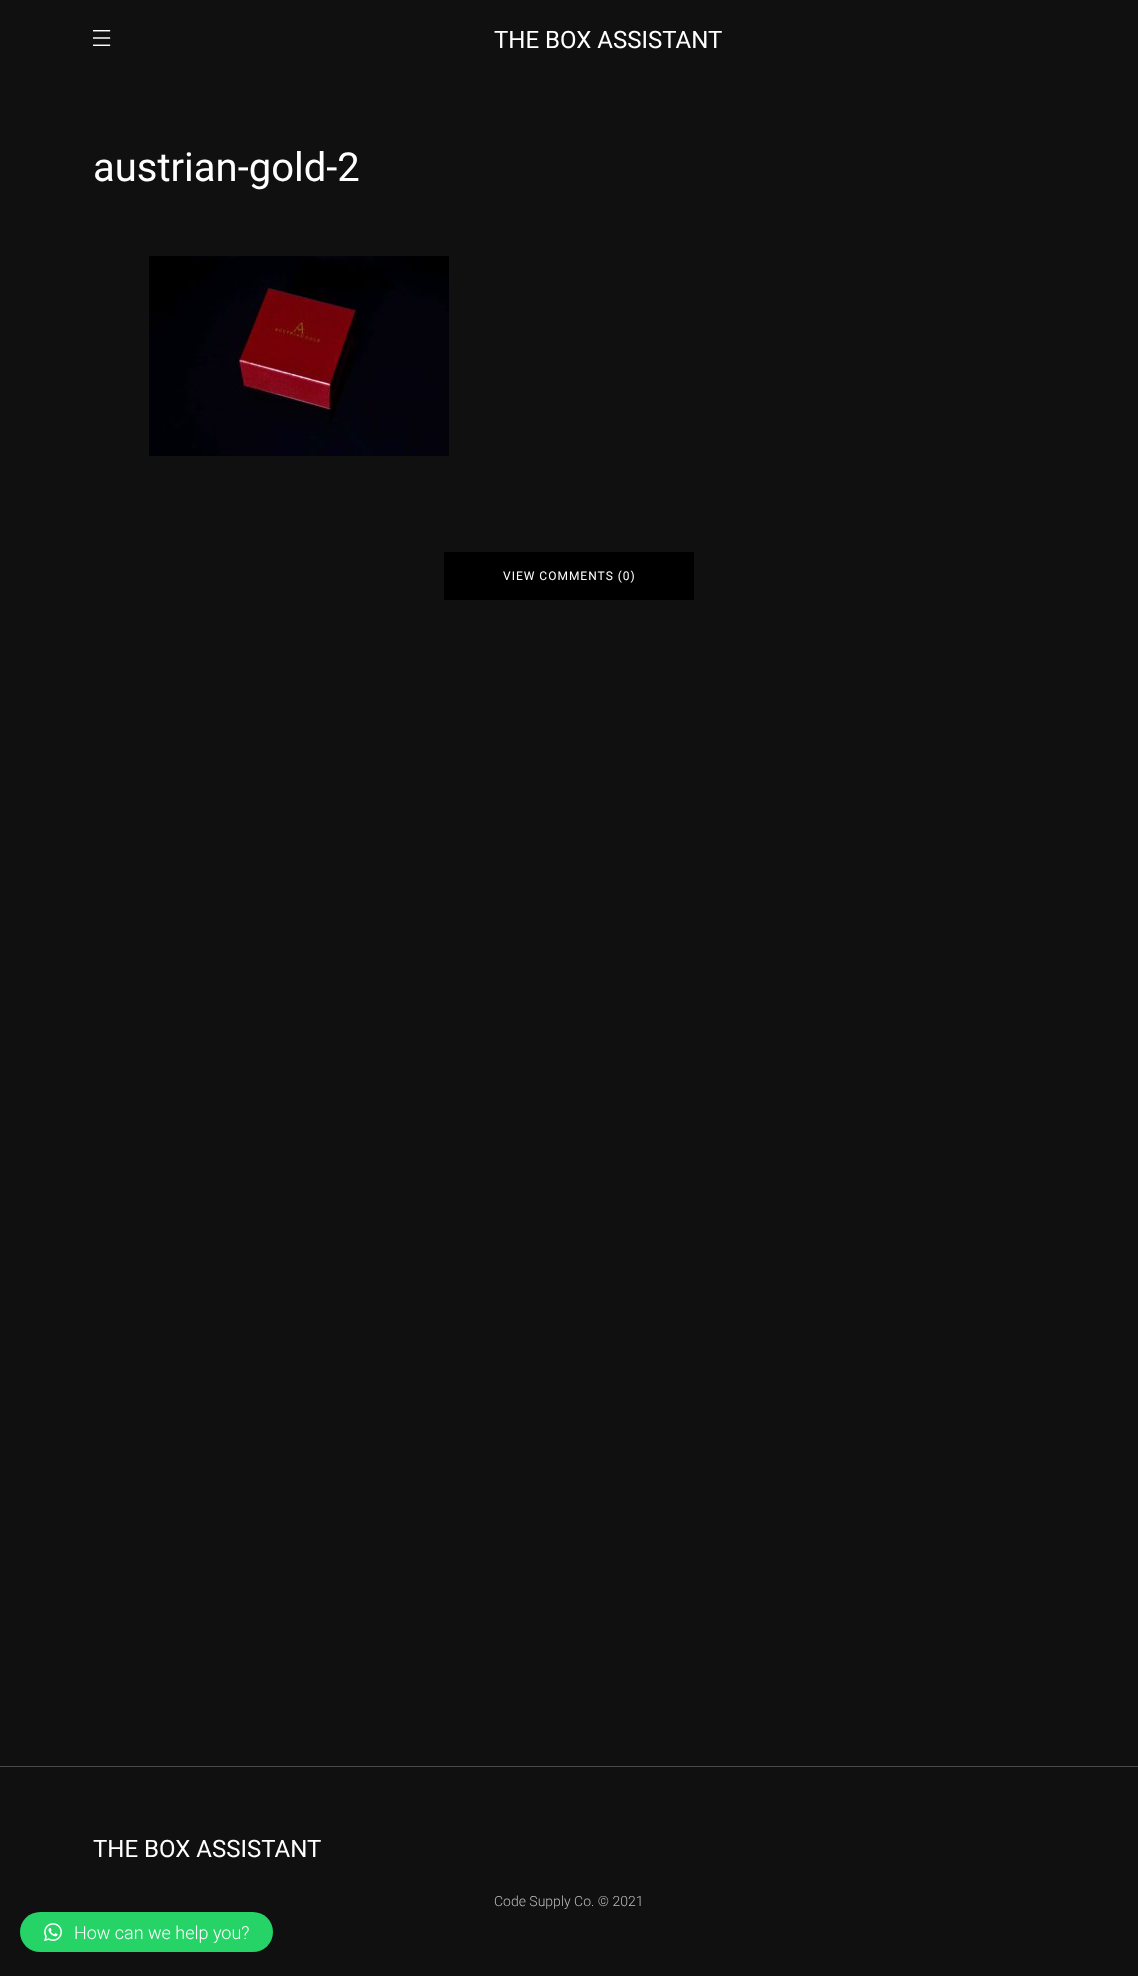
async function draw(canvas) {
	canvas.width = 1138;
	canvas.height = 1976;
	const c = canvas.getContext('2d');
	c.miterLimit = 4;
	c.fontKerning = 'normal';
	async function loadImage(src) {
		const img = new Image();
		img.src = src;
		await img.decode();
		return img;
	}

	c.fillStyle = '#101010';
	c.fillRect(0, 0, 1138, 1976);
	c.drawImage(await loadImage('img1.png'), 93, 30, 18, 16);
	c.font = '24px Roboto';
	c.fillStyle = '#fff';
	c.fillText('THE BOX ASSISTANT', 494, 48);
	c.font = '40px Roboto';
	c.fillText('austrian-gold-2', 93, 181);
	c.drawImage(await loadImage('img2.png'), 149, 256, 300, 200);
	c.fillStyle = '#000';
	c.fillRect(444, 552, 250, 48);
	c.letterSpacing = '1px';
	c.font = '12px Roboto';
	c.fillStyle = '#fff';
	c.fillText('VIEW COMMENTS (0)', 503, 580);
	c.fillStyle = '#494949';
	c.fillRect(0, 1766, 1138, 1);
	c.letterSpacing = '0px';
	c.font = '24px Roboto';
	c.fillStyle = '#fff';
	c.fillText('THE BOX ASSISTANT', 93, 1857);
	c.font = '300 14px Roboto';
	c.fillStyle = '#bbb';
	c.fillText('Code Supply Co. © 2021', 494, 1906);
	c.fillStyle = '#25d366';
	c.beginPath();
	c.roundRect(20, 1912, 253, 40, 20);
	c.fill();
	c.drawImage(await loadImage('img3.png'), 44, 1923, 18, 19);
	c.font = '300 18px Roboto';
	c.fillStyle = '#fff';
	c.fillText('How can we help you?', 74, 1939);
}

draw(document.querySelector('canvas'));
